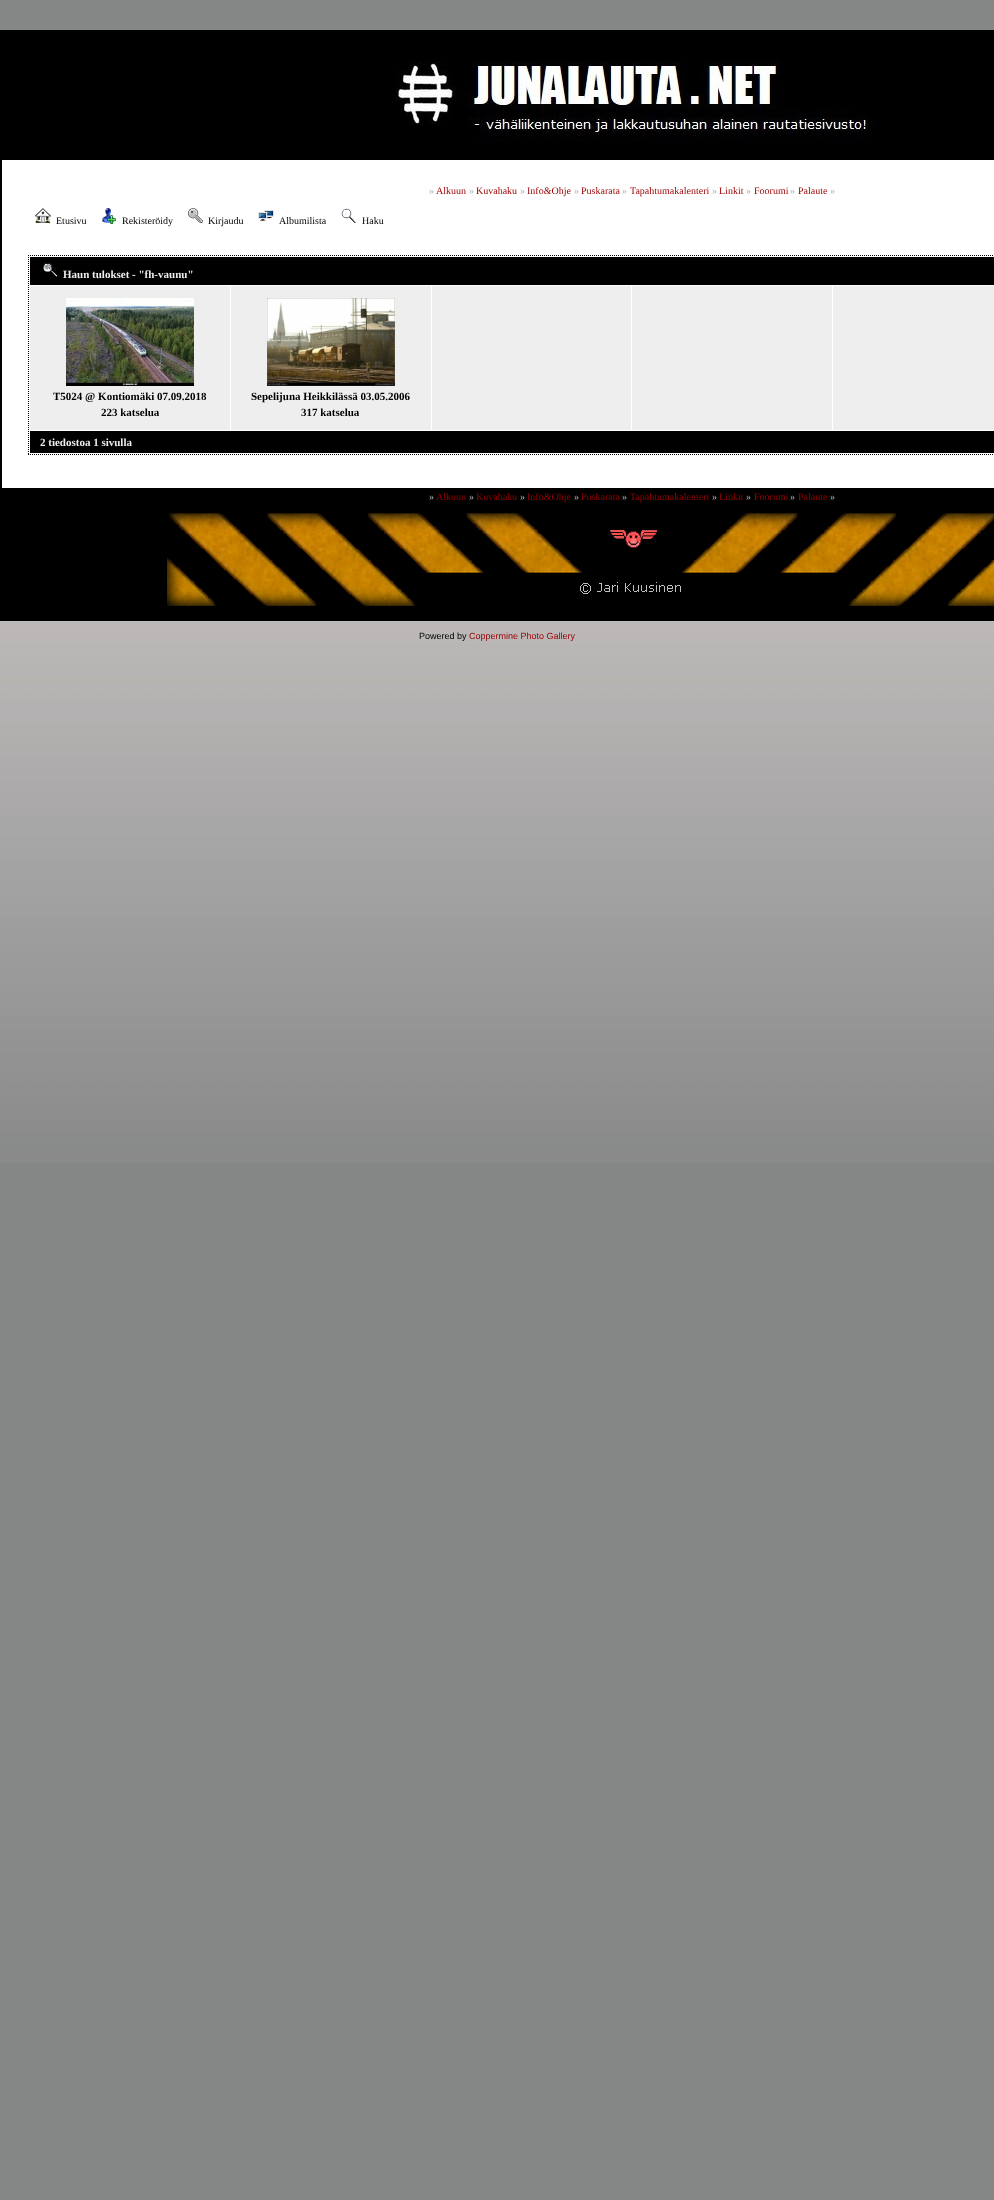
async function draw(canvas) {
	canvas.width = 994;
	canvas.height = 2200;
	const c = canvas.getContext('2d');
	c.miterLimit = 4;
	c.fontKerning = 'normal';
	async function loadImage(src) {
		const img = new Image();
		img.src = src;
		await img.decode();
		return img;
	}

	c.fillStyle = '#858686';
	c.fillRect(0, 0, 994, 2200);
	c.drawImage(await loadImage('img1.png'), 0, 621, 994, 542);
	c.fillStyle = '#000';
	c.fillRect(0, 30, 994, 591);
	c.drawImage(await loadImage('img2.png'), 392, 61, 482, 80);
	c.fillStyle = '#fff';
	c.fillRect(2, 160, 992, 328);
	c.font = '10px Liberation Serif';
	c.fillStyle = '#b0b0b0';
	c.fillText('»', 429, 194);
	c.fillStyle = '#900';
	c.fillText('Alkuun', 436, 194);
	c.fillStyle = '#b0b0b0';
	c.fillText('»', 469, 194);
	c.fillStyle = '#900';
	c.fillText('Kuvahaku', 476, 194);
	c.fillStyle = '#b0b0b0';
	c.fillText('»', 520, 194);
	c.fillStyle = '#900';
	c.fillText('Info&Ohje', 527, 194);
	c.fillStyle = '#b0b0b0';
	c.fillText('»', 574, 194);
	c.fillStyle = '#900';
	c.fillText('Puskarata', 581, 194);
	c.fillStyle = '#b0b0b0';
	c.fillText('»', 622, 194);
	c.fillStyle = '#900';
	c.fillText('Tapahtumakalenteri', 630, 194);
	c.fillStyle = '#b0b0b0';
	c.fillText('»', 712, 194);
	c.fillStyle = '#900';
	c.fillText('Linkit', 719, 194);
	c.fillStyle = '#b0b0b0';
	c.fillText('»', 746, 194);
	c.fillStyle = '#900';
	c.fillText('Foorumi', 754, 194);
	c.fillStyle = '#b0b0b0';
	c.fillText('»', 790, 194);
	c.fillStyle = '#900';
	c.fillText('Palaute', 798, 194);
	c.fillStyle = '#b0b0b0';
	c.fillText('»', 830, 194);
	c.drawImage(await loadImage('img3.png'), 35, 208, 16, 16);
	c.fillStyle = '#000';
	c.fillText('Etusivu', 56, 224);
	c.drawImage(await loadImage('img4.png'), 102, 208, 14, 16);
	c.fillText('Rekisteröidy', 122, 224);
	c.drawImage(await loadImage('img5.png'), 188, 208, 15, 15);
	c.fillText('Kirjaudu', 208, 224);
	c.drawImage(await loadImage('img6.png'), 258, 210, 16, 11);
	c.fillText('Albumilista', 279, 224);
	c.drawImage(await loadImage('img7.png'), 341, 208, 16, 15);
	c.fillText('Haku', 362, 224);
	c.beginPath();
	c.moveTo(28, 255.5);
	c.lineTo(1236, 255.5);
	c.strokeStyle = '#000';
	c.setLineDash([1, 1]);
	c.stroke();
	c.beginPath();
	c.moveTo(28, 454.5);
	c.lineTo(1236, 454.5);
	c.stroke();
	c.beginPath();
	c.moveTo(28.5, 255);
	c.lineTo(28.5, 455);
	c.stroke();
	c.fillRect(30, 257, 964, 28);
	c.drawImage(await loadImage('img8.png'), 43, 262, 15, 15);
	c.font = 'bold 11px Liberation Serif';
	c.fillStyle = '#eee';
	c.fillText('Haun tulokset - "fh-vaunu"', 63, 278);
	c.fillRect(30, 286, 200, 144);
	c.drawImage(await loadImage('img9.png'), 66, 298, 128, 88);
	c.fillStyle = '#000';
	c.fillText('T5024 @ Kontiomäki 07.09.2018', 53, 400);
	c.fillText('223 katselua', 101, 416);
	c.fillStyle = '#eee';
	c.fillRect(231, 286, 200, 144);
	c.drawImage(await loadImage('img10.png'), 267, 298, 128, 88);
	c.fillStyle = '#000';
	c.fillText('Sepelijuna Heikkilässä 03.05.2006', 251, 400);
	c.fillText('317 katselua', 301, 416);
	for (const [x, y, w, h, color] of [
		[432, 286, 199, 144, '#eee'],
		[632, 286, 200, 144, '#eee'],
		[833, 286, 161, 144, '#eee'],
		[30, 431, 964, 22, '#000'],
	]) {
		c.fillStyle = color;
		c.fillRect(x, y, w, h);
	}
	c.fillStyle = '#eee';
	c.fillText('2 tiedostoa 1 sivulla', 40, 446);
	c.font = '10px Liberation Serif';
	c.fillStyle = '#b0b0b0';
	c.fillText('»', 429, 500);
	c.fillStyle = '#900';
	c.fillText('Alkuun', 436, 500);
	c.fillStyle = '#b0b0b0';
	c.fillText('»', 469, 500);
	c.fillStyle = '#900';
	c.fillText('Kuvahaku', 476, 500);
	c.fillStyle = '#b0b0b0';
	c.fillText('»', 520, 500);
	c.fillStyle = '#900';
	c.fillText('Info&Ohje', 527, 500);
	c.fillStyle = '#b0b0b0';
	c.fillText('»', 574, 500);
	c.fillStyle = '#900';
	c.fillText('Puskarata', 581, 500);
	c.fillStyle = '#b0b0b0';
	c.fillText('»', 622, 500);
	c.fillStyle = '#900';
	c.fillText('Tapahtumakalenteri', 630, 500);
	c.fillStyle = '#b0b0b0';
	c.fillText('»', 712, 500);
	c.fillStyle = '#900';
	c.fillText('Linkit', 719, 500);
	c.fillStyle = '#b0b0b0';
	c.fillText('»', 746, 500);
	c.fillStyle = '#900';
	c.fillText('Foorumi', 754, 500);
	c.fillStyle = '#b0b0b0';
	c.fillText('»', 790, 500);
	c.fillStyle = '#900';
	c.fillText('Palaute', 798, 500);
	c.fillStyle = '#b0b0b0';
	c.fillText('»', 830, 500);
	c.drawImage(await loadImage('img11.png'), 167, 513, 827, 93);
	c.font = '9px Liberation Sans';
	c.fillStyle = '#000';
	c.fillText('Powered by', 419, 639);
	c.fillStyle = '#900';
	c.fillText('Coppermine Photo Gallery', 469, 639);
}

draw(document.querySelector('canvas'));
